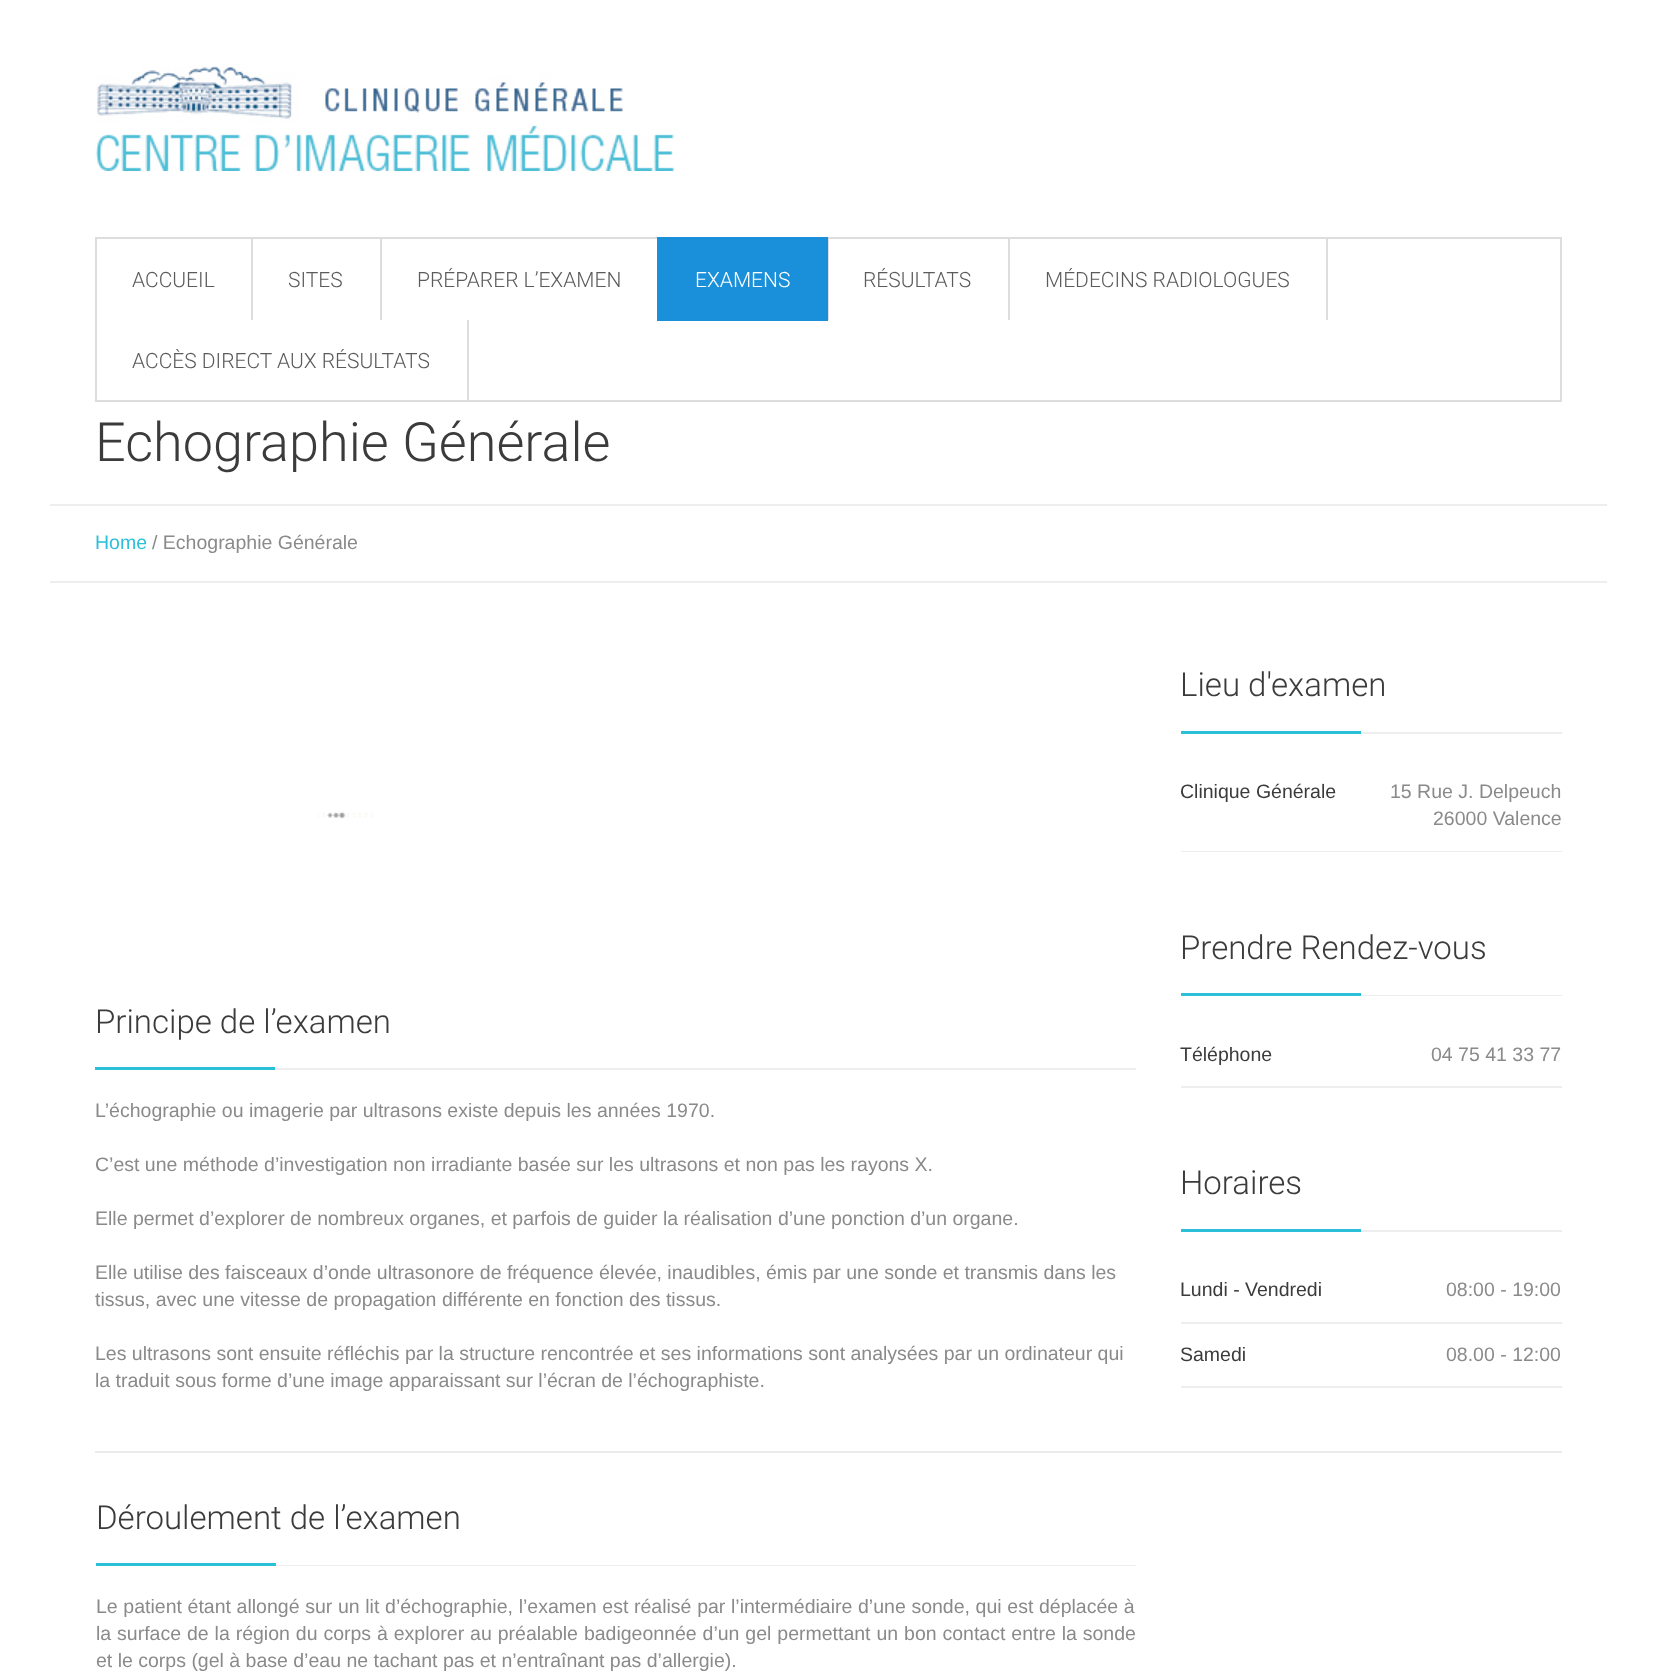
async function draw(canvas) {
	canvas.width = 1656;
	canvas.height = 1677;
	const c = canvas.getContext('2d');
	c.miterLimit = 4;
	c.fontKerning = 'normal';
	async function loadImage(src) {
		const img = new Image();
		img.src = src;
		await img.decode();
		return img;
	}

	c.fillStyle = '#fff';
	c.fillRect(0, 0, 1656, 1677);
	c.drawImage(await loadImage('img1.png'), 95, 66, 579, 105);
	c.strokeStyle = '#ddd';
	c.lineWidth = 2;
	c.strokeRect(96, 238, 1465, 163);
	c.fillStyle = '#ddd';
	c.fillRect(251, 239, 2, 81);
	c.font = '300 21px Roboto';
	c.fillStyle = '#5b5b5b';
	c.fillText('ACCUEIL', 132, 287);
	c.fillStyle = '#ddd';
	c.fillRect(380, 239, 2, 81);
	c.fillStyle = '#5b5b5b';
	c.fillText('SITES', 288, 287);
	c.fillText('PRÉPARER L’EXAMEN', 417, 287);
	c.fillStyle = '#ddd';
	c.fillRect(828, 239, 1, 81);
	c.fillStyle = '#1b90da';
	c.fillRect(657, 237, 171, 84);
	c.fillStyle = '#fff';
	c.fillText('EXAMENS', 695, 287);
	c.fillStyle = '#ddd';
	c.fillRect(1008, 239, 2, 81);
	c.fillStyle = '#5b5b5b';
	c.fillText('RÉSULTATS', 863, 287);
	c.fillStyle = '#ddd';
	c.fillRect(1326, 239, 2, 81);
	c.fillStyle = '#5b5b5b';
	c.fillText('MÉDECINS RADIOLOGUES', 1045, 287);
	c.fillStyle = '#ddd';
	c.fillRect(467, 320, 2, 81);
	c.fillStyle = '#5b5b5b';
	c.fillText('ACCÈS DIRECT AUX RÉSULTATS', 132, 368);
	c.font = '300 54px Roboto';
	c.fillStyle = '#3b3b3b';
	c.fillText('Echographie Générale', 95, 461);
	c.fillStyle = '#eee';
	c.fillRect(50, 504, 1557, 2);
	c.font = '19.5px Liberation Sans';
	c.fillStyle = '#2cbfd9';
	c.fillText('Home', 95, 549);
	c.fillStyle = '#8a8a8a';
	c.fillText('/ Echographie Générale', 152, 549);
	c.fillStyle = '#eee';
	c.fillRect(50, 581, 1557, 2);
	c.drawImage(await loadImage('img2.png'), 317, 811, 57, 8);
	c.font = '300 33px Roboto';
	c.fillStyle = '#3b3b3b';
	c.fillText('Principe de l’examen', 95, 1033);
	c.fillStyle = '#2cbfd9';
	c.fillRect(95, 1067, 180, 3);
	c.fillStyle = '#eee';
	c.fillRect(275, 1068, 861, 2);
	c.font = '19.5px Liberation Sans';
	c.fillStyle = '#8a8a8a';
	for (const [text, x, y] of [
		['L’échographie ou imagerie par ultrasons existe depuis les années 1970.', 95, 1117],
		['C’est une méthode d’investigation non irradiante basée sur les ultrasons et non pas les rayons X.', 95, 1171],
		['Elle permet d’explorer de nombreux organes, et parfois de guider la réalisation d’une ponction d’un organe.', 95, 1225],
		['Elle utilise des faisceaux d’onde ultrasonore de fréquence élevée, inaudibles, émis par une sonde et transmis dans les', 95, 1279],
		['tissus, avec une vitesse de propagation différente en fonction des tissus.', 95, 1306],
		['Les ultrasons sont ensuite réfléchis par la structure rencontrée et ses informations sont analysées par un ordinateur qui', 95, 1360],
		['la traduit sous forme d’une image apparaissant sur l’écran de l’échographiste.', 95, 1387],
	]) {
		c.fillText(text, x, y);
	}
	c.fillStyle = '#ebebeb';
	c.fillRect(95, 1451, 1467, 2);
	c.font = '300 33px Roboto';
	c.fillStyle = '#3b3b3b';
	c.fillText('Déroulement de l’examen', 96, 1529);
	c.fillStyle = '#2cbfd9';
	c.fillRect(96, 1563, 180, 3);
	c.fillStyle = '#eee';
	c.fillRect(276, 1565, 860, 1);
	c.wordSpacing = '0.25px';
	c.font = '19.5px Liberation Sans';
	c.fillStyle = '#8a8a8a';
	c.fillText('Le patient étant allongé sur un lit d’échographie, l’examen est réalisé par l’intermédiaire d’une sonde, qui est déplacée à', 96, 1613);
	c.wordSpacing = '0.5px';
	c.fillText('la surface de la région du corps à explorer au préalable badigeonnée d’un gel permettant un bon contact entre la sonde', 96, 1640);
	c.wordSpacing = '0px';
	c.fillText('et le corps (gel à base d’eau ne tachant pas et n’entraînant pas d’allergie).', 96, 1667);
	c.font = '300 33px Roboto';
	c.fillStyle = '#3b3b3b';
	c.fillText('Lieu d\'examen', 1180, 696);
	for (const [x, y, w, h, color] of [
		[1181, 731, 180, 3, '#2cbfd9'],
		[1361, 732, 201, 2, '#eee'],
		[1181, 851, 381, 1, '#eee'],
	]) {
		c.fillStyle = color;
		c.fillRect(x, y, w, h);
	}
	c.font = '19.5px Liberation Sans';
	c.fillStyle = '#3b3b3b';
	c.fillText('Clinique Générale', 1180, 798);
	c.fillStyle = '#8a8a8a';
	c.fillText('15 Rue J. Delpeuch', 1390, 798);
	c.fillText('26000 Valence', 1433, 825);
	c.font = '300 33px Roboto';
	c.fillStyle = '#3b3b3b';
	c.fillText('Prendre Rendez-vous', 1180, 959);
	for (const [x, y, w, h, color] of [
		[1181, 993, 180, 3, '#2cbfd9'],
		[1361, 995, 201, 1, '#eee'],
		[1181, 1086, 381, 2, '#eee'],
	]) {
		c.fillStyle = color;
		c.fillRect(x, y, w, h);
	}
	c.font = '19.5px Liberation Sans';
	c.fillStyle = '#3b3b3b';
	c.fillText('Téléphone', 1180, 1061);
	c.fillStyle = '#8a8a8a';
	c.fillText('04 75 41 33 77', 1431, 1061);
	c.font = '300 33px Roboto';
	c.fillStyle = '#3b3b3b';
	c.fillText('Horaires', 1180, 1194);
	for (const [x, y, w, h, color] of [
		[1181, 1229, 180, 3, '#2cbfd9'],
		[1361, 1230, 201, 2, '#eee'],
		[1181, 1322, 381, 2, '#eee'],
	]) {
		c.fillStyle = color;
		c.fillRect(x, y, w, h);
	}
	c.font = '19.5px Liberation Sans';
	c.fillStyle = '#3b3b3b';
	c.fillText('Lundi - Vendredi', 1180, 1296);
	c.fillStyle = '#8a8a8a';
	c.fillText('08:00 - 19:00', 1446, 1296);
	c.fillStyle = '#eee';
	c.fillRect(1181, 1386, 381, 2);
	c.fillStyle = '#3b3b3b';
	c.fillText('Samedi', 1180, 1361);
	c.fillStyle = '#8a8a8a';
	c.fillText('08.00 - 12:00', 1446, 1361);
}

draw(document.querySelector('canvas'));
